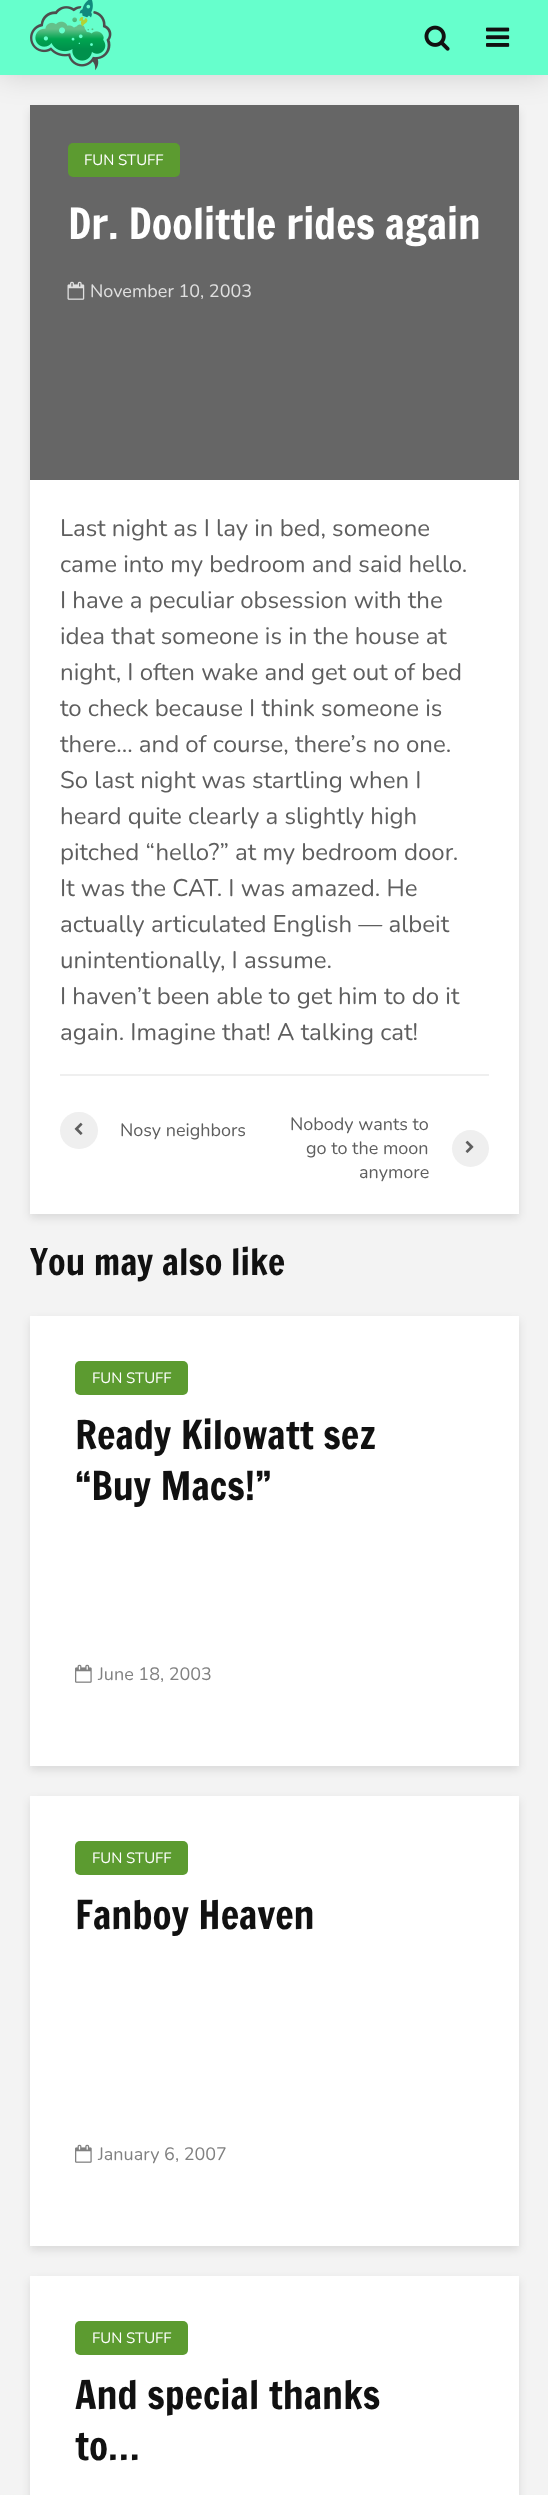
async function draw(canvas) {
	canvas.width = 548;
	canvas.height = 2495;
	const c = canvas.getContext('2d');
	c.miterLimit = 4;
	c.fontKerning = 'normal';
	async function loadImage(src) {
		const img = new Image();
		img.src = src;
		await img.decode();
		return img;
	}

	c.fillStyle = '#f3f3f3';
	c.fillRect(0, 0, 548, 2495);
	c.fillStyle = '#0001011a';
	c.filter = 'blur(4px)';
	c.beginPath();
	c.rect(30, 110, 489, 1108);
	c.fill();
	c.filter = 'none';
	c.fillStyle = '#666';
	c.fillRect(30, 105, 489, 375);
	c.fillStyle = '#00000026';
	c.filter = 'blur(15px)';
	c.beginPath();
	c.rect(0, 0, 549, 75);
	c.fill();
	c.filter = 'none';
	c.fillStyle = '#6fc';
	c.fillRect(0, 0, 548, 75);
	c.drawImage(await loadImage('img1.png'), 30, 0, 82, 71);
	c.drawImage(await loadImage('img2.png'), 424, 25, 26, 26);
	c.drawImage(await loadImage('img3.png'), 486, 27, 24, 20);
	c.fillStyle = '#fff';
	c.fillRect(30, 480, 489, 734);
	c.fillStyle = '#5c9b30';
	c.beginPath();
	c.roundRect(68, 143, 112, 34, 5);
	c.fill();
	c.font = '200 15px Nunito';
	c.fillStyle = '#fff';
	c.fillText('FUN STUFF', 84, 165);
	c.font = '42px Francois One';
	c.fillText('Dr. Doolittle rides again', 68, 239);
	c.drawImage(await loadImage('img4.png'), 67, 281, 18, 19);
	c.font = '200 18px Nunito';
	c.fillStyle = '#e0e0e0';
	c.fillText('November 10, 2003', 90, 297);
	c.font = '200 24px Nunito';
	c.fillStyle = '#5e5e5e';
	for (const [text, x, y] of [
		['Last night as I lay in bed, someone', 60, 536],
		['came into my bedroom and said hello.', 60, 572],
		['I have a peculiar obsession with the', 60, 608],
		['idea that someone is in the house at', 60, 644],
		['night, I often wake and get out of bed', 60, 680],
		['to check because I think someone is', 60, 716],
		['there… and of course, there’s no one.', 60, 752],
		['So last night was startling when I', 60, 788],
		['heard quite clearly a slightly high', 60, 824],
		['pitched “hello?” at my bedroom door.', 60, 860],
		['It was the CAT. I was amazed. He', 60, 896],
		['actually articulated English — albeit', 60, 932],
		['unintentionally, I assume.', 60, 968],
		['I haven’t been able to get him to do it', 60, 1004],
		['again. Imagine that! A talking cat!', 60, 1040],
	]) {
		c.fillText(text, x, y);
	}
	c.fillStyle = '#efefef';
	c.fillRect(60, 1074, 429, 2);
	c.beginPath();
	c.roundRect(60, 1112, 38, 37, 18.5);
	c.fill();
	c.drawImage(await loadImage('img5.png'), 74, 1122, 9, 13);
	c.font = '200 18px Nunito';
	c.fillStyle = '#5e5e5e';
	for (const [text, x, y] of [
		['Nosy neighbors', 120, 1136],
		['Nobody wants to', 290, 1130],
		['go to the moon', 306, 1154],
		['anymore', 359, 1178],
	]) {
		c.fillText(text, x, y);
	}
	c.fillStyle = '#efefef';
	c.beginPath();
	c.arc(470.5, 1148.5, 18.5, 0, 2 * Math.PI);
	c.fill();
	c.drawImage(await loadImage('img6.png'), 465, 1140, 9, 13);
	c.font = '36px Francois One';
	c.fillStyle = '#111';
	c.fillText('You may also like', 30, 1275);
	c.fillStyle = '#0001011a';
	c.filter = 'blur(4px)';
	c.beginPath();
	c.rect(30, 1320, 489, 450);
	c.fill();
	c.filter = 'none';
	c.fillStyle = '#fff';
	c.fillRect(30, 1316, 489, 450);
	c.fillStyle = '#5c9b30';
	c.beginPath();
	c.roundRect(75, 1361, 113, 34, 5);
	c.fill();
	c.font = '200 15px Nunito';
	c.fillStyle = '#fff';
	c.fillText('FUN STUFF', 92, 1383);
	c.font = '39px Francois One';
	c.fillStyle = '#111';
	c.fillText('Ready Kilowatt sez', 75, 1449);
	c.fillText('“Buy Macs!”', 75, 1500);
	c.drawImage(await loadImage('img7.png'), 75, 1664, 17, 19);
	c.font = '200 18px Nunito';
	c.fillStyle = '#818181';
	c.fillText('June 18, 2003', 98, 1680);
	c.fillStyle = '#0001011a';
	c.filter = 'blur(4px)';
	c.beginPath();
	c.rect(30, 1800, 489, 450);
	c.fill();
	c.filter = 'none';
	c.fillStyle = '#fff';
	c.fillRect(30, 1796, 489, 450);
	c.fillStyle = '#5c9b30';
	c.beginPath();
	c.roundRect(75, 1841, 113, 34, 5);
	c.fill();
	c.font = '200 15px Nunito';
	c.fillStyle = '#fff';
	c.fillText('FUN STUFF', 92, 1863);
	c.font = '39px Francois One';
	c.fillStyle = '#111';
	c.fillText('Fanboy Heaven', 75, 1929);
	c.drawImage(await loadImage('img7.png'), 75, 2144, 17, 19);
	c.font = '200 18px Nunito';
	c.fillStyle = '#818181';
	c.fillText('January 6, 2007', 98, 2160);
	c.fillStyle = '#0001011a';
	c.filter = 'blur(4px)';
	c.beginPath();
	c.rect(30, 2280, 489, 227);
	c.fill();
	c.filter = 'none';
	c.fillStyle = '#fff';
	c.fillRect(30, 2276, 489, 219);
	c.fillStyle = '#5c9b30';
	c.beginPath();
	c.roundRect(75, 2321, 113, 34, 5);
	c.fill();
	c.font = '200 15px Nunito';
	c.fillStyle = '#fff';
	c.fillText('FUN STUFF', 92, 2343);
	c.font = '39px Francois One';
	c.fillStyle = '#111';
	c.fillText('And special thanks', 75, 2409);
	c.fillText('to…', 75, 2460);
}

draw(document.querySelector('canvas'));
